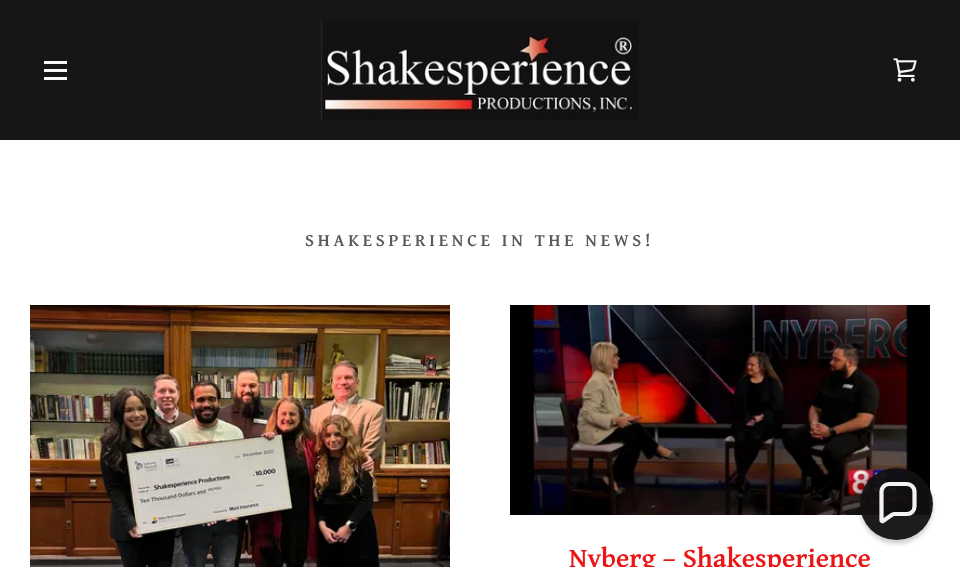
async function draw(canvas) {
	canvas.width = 960;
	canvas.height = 567;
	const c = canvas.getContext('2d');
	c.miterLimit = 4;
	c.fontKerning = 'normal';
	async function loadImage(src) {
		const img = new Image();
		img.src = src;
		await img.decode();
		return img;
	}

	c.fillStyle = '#fff';
	c.fillRect(0, 0, 960, 567);
	for (const [x, y, w, h, color] of [
		[0, 0, 960, 140, '#161616'],
		[44, 61, 23, 3, '#f7f7f7'],
		[44, 69, 23, 3, '#f7f7f7'],
		[44, 77, 23, 3, '#f7f7f7'],
	]) {
		c.fillStyle = color;
		c.fillRect(x, y, w, h);
	}
	c.drawImage(await loadImage('img1.png'), 321, 20, 318, 100);
	c.drawImage(await loadImage('img2.png'), 893, 58, 24, 24);
	c.letterSpacing = '3.75px';
	c.font = 'bold 17.5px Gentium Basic';
	c.fillStyle = '#595959';
	c.fillText('SHAKESPERIENCE IN THE NEWS!', 305, 246);
	c.drawImage(await loadImage('img3.png'), 30, 305, 420, 262);
	c.drawImage(await loadImage('img4.png'), 510, 305, 420, 210);
	c.letterSpacing = '0px';
	c.font = 'bold 27.5px Gentium Basic';
	c.fillStyle = '#eb1515';
	c.fillText('Nyberg – Shakesperience', 569, 567);
	c.save();
	c.beginPath();
	c.moveTo(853, 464);
	c.lineTo(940, 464);
	c.lineTo(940, 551);
	c.lineTo(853, 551);
	c.closePath();
	c.moveTo(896, 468);
	c.lineTo(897, 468);
	c.bezierCurveTo(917, 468, 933, 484, 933, 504);
	c.bezierCurveTo(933, 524, 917, 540, 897, 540);
	c.lineTo(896, 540);
	c.bezierCurveTo(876, 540, 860, 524, 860, 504);
	c.bezierCurveTo(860, 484, 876, 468, 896, 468);
	c.closePath();
	c.clip('evenodd');
	c.fillStyle = '#00000030';
	c.filter = 'blur(2px)';
	c.beginPath();
	c.roundRect(860, 471, 73, 73, 36.5);
	c.fill();
	c.filter = 'none';
	c.restore();
	c.fillStyle = '#12100ff2';
	c.beginPath();
	c.roundRect(860, 468, 73, 72, 36);
	c.fill();
	c.beginPath();
	c.moveTo(907, 484);
	c.lineTo(889, 484);
	c.bezierCurveTo(885, 484, 881.5, 487.5, 881.5, 491.5);
	c.lineTo(881.5, 520.5);
	c.bezierCurveTo(881.5, 521, 882.5, 521.5, 883, 521);
	c.lineTo(891, 515.5);
	c.bezierCurveTo(892, 514.5, 893.5, 514, 894.5, 514);
	c.lineTo(907, 514);
	c.bezierCurveTo(911, 514, 914.5, 511, 914.5, 506.5);
	c.lineTo(914.5, 491.5);
	c.bezierCurveTo(914.5, 487.5, 911, 484, 907, 484);
	c.closePath();
	c.strokeStyle = '#fffffff2';
	c.lineWidth = 4.2;
	c.stroke();
}

draw(document.querySelector('canvas'));
